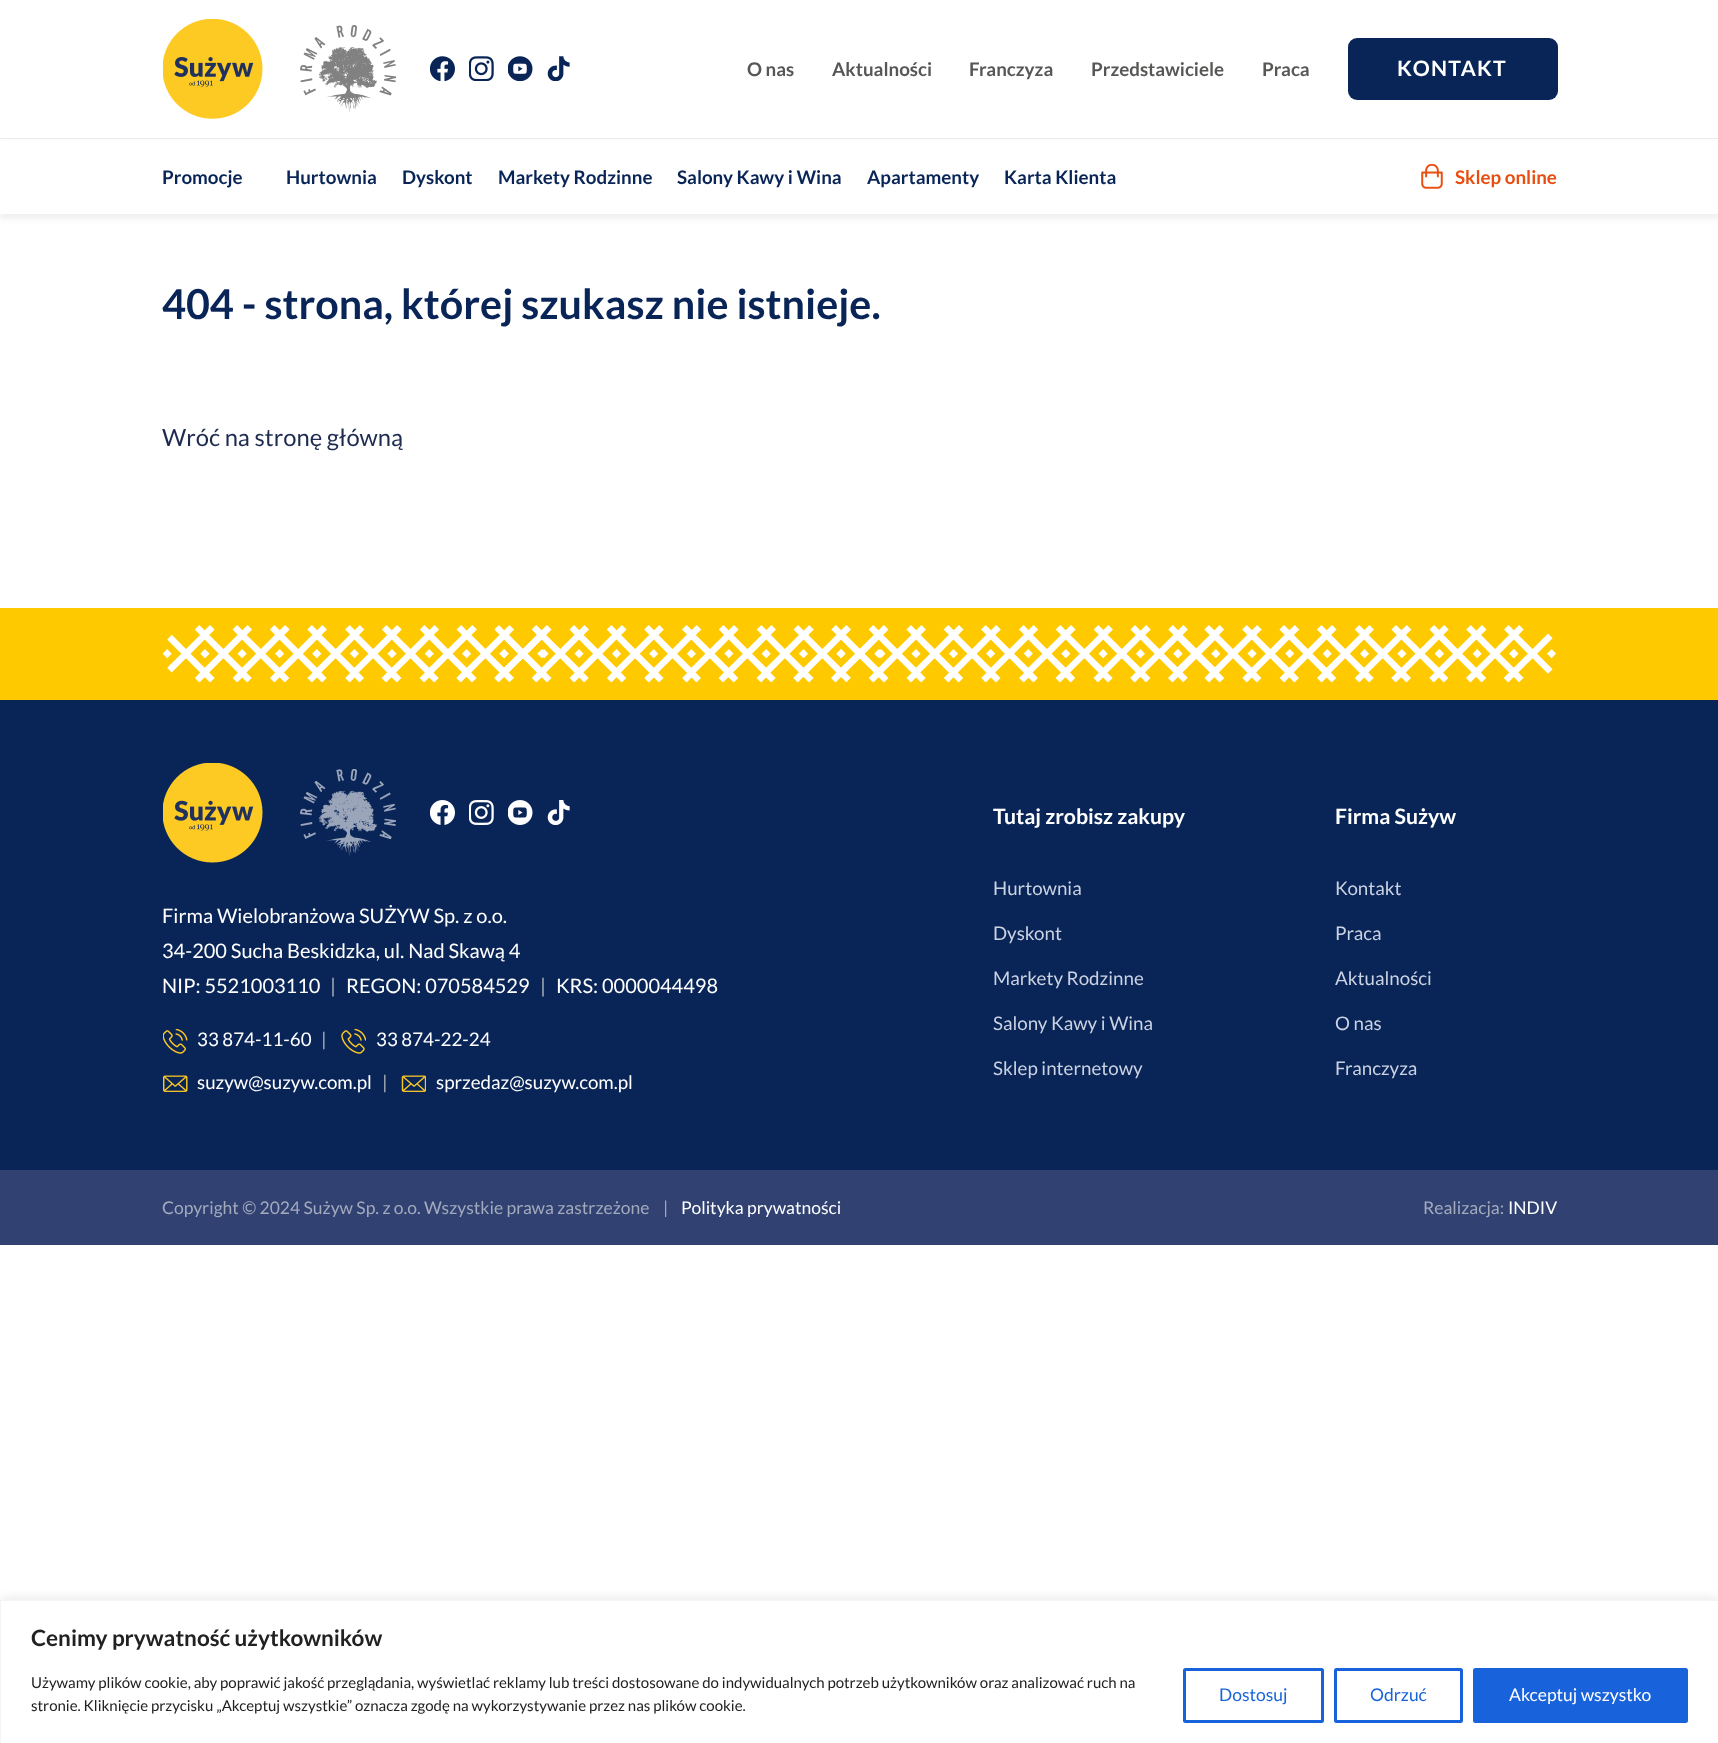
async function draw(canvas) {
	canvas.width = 1718;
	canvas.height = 1743;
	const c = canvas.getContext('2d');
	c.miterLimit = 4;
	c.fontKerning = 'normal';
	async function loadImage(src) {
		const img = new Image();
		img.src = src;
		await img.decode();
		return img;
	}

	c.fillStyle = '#fff';
	c.fillRect(0, 0, 1718, 1743);
	c.drawImage(await loadImage('img1.png'), 163, 19, 100, 100);
	c.drawImage(await loadImage('img2.png'), 300, 25, 96, 87);
	c.drawImage(await loadImage('img3.png'), 430, 56, 25, 25);
	c.drawImage(await loadImage('img4.png'), 469, 56, 25, 25);
	c.drawImage(await loadImage('img5.png'), 508, 56, 25, 25);
	c.drawImage(await loadImage('img6.png'), 547, 56, 23, 25);
	c.font = 'bold 18.75px Lato';
	c.fillStyle = '#575756';
	for (const [text, x, y] of [
		['O nas', 747, 76],
		['Aktualności', 832, 76],
		['Franczyza', 969, 76],
		['Przedstawiciele', 1091, 76],
		['Praca', 1262, 76],
	]) {
		c.fillText(text, x, y);
	}
	c.fillStyle = '#092557';
	c.beginPath();
	c.roundRect(1348, 38, 210, 62, 9);
	c.fill();
	c.letterSpacing = '1.25px';
	c.font = 'bold 21.25px Lato';
	c.fillStyle = '#fff';
	c.fillText('KONTAKT', 1397, 76);
	c.fillStyle = '#45454514';
	c.filter = 'blur(2.5px)';
	c.beginPath();
	c.rect(0, 143, 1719, 76);
	c.fill();
	c.filter = 'none';
	c.fillStyle = '#fff';
	c.fillRect(0, 141, 1718, 73);
	c.fillStyle = '#ebebeb';
	c.fillRect(0, 138, 1718, 1);
	c.letterSpacing = '0px';
	c.font = 'bold 18.75px Lato';
	c.fillStyle = '#092557';
	for (const [text, x, y] of [
		['Promocje', 162, 184],
		['Hurtownia', 286, 184],
		['Dyskont', 402, 184],
		['Markety Rodzinne', 498, 184],
		['Salony Kawy i Wina', 677, 184],
		['Apartamenty', 867, 184],
		['Karta Klienta', 1004, 184],
	]) {
		c.fillText(text, x, y);
	}
	c.drawImage(await loadImage('img7.png'), 1421, 164, 22, 25);
	c.fillStyle = '#e84e0f';
	c.fillText('Sklep online', 1455, 184);
	c.font = 'bold 41.25px Lato';
	c.fillStyle = '#092557';
	c.fillText('404 - strona, której szukasz nie istnieje.', 162, 319);
	c.font = '23.75px Lato';
	c.fillStyle = '#1d2b50';
	c.fillText('Wróć na stronę główną', 162, 446);
	c.fillStyle = '#ffc900';
	c.fillRect(0, 608, 1718, 92);
	c.drawImage(await loadImage('img8.png'), 163, 625, 1393, 58);
	c.fillStyle = '#092557';
	c.fillRect(0, 700, 1718, 470);
	c.drawImage(await loadImage('img9.png'), 163, 763, 100, 100);
	c.drawImage(await loadImage('img10.png'), 300, 769, 96, 87);
	c.drawImage(await loadImage('img11.png'), 430, 800, 25, 25);
	c.drawImage(await loadImage('img12.png'), 469, 800, 25, 25);
	c.drawImage(await loadImage('img13.png'), 508, 800, 25, 25);
	c.drawImage(await loadImage('img14.png'), 547, 800, 23, 25);
	c.font = '20px Lato';
	c.fillStyle = '#fff';
	for (const [text, x, y] of [
		['Firma Wielobranżowa SUŻYW Sp. z o.o.', 162, 923],
		['34-200 Sucha Beskidzka, ul. Nad Skawą 4', 162, 958],
		['NIP: 5521003110', 162, 993],
	]) {
		c.fillText(text, x, y);
	}
	c.fillStyle = '#acb1b9';
	c.fillText('|', 330, 993);
	c.fillStyle = '#fff';
	c.fillText('REGON: 070584529', 346, 993);
	c.fillStyle = '#acb1b9';
	c.fillText('|', 540, 993);
	c.fillStyle = '#fff';
	c.fillText('KRS: 0000044498', 556, 993);
	c.drawImage(await loadImage('img15.png'), 163, 1029, 25, 25);
	c.font = '18.75px Lato';
	c.fillText('33 874-11-60', 197, 1046);
	c.fillStyle = '#acb1b9';
	c.fillText('|', 321, 1046);
	c.drawImage(await loadImage('img16.png'), 341, 1029, 25, 25);
	c.fillStyle = '#fff';
	c.fillText('33 874-22-24', 376, 1046);
	c.drawImage(await loadImage('img17.png'), 163, 1075, 25, 17);
	c.fillText('suzyw@suzyw.com.pl', 197, 1089);
	c.fillStyle = '#acb1b9';
	c.fillText('|', 382, 1089);
	c.drawImage(await loadImage('img18.png'), 401, 1075, 25, 17);
	c.fillStyle = '#fff';
	c.fillText('sprzedaz@suzyw.com.pl', 436, 1089);
	c.font = 'bold 21.25px Lato';
	c.fillText('Tutaj zrobisz zakupy', 993, 824);
	c.font = '18.75px Lato';
	c.fillStyle = '#cbd2e2';
	for (const [text, x, y] of [
		['Hurtownia', 993, 895],
		['Dyskont', 993, 940],
		['Markety Rodzinne', 993, 985],
		['Salony Kawy i Wina', 993, 1030],
		['Sklep internetowy', 993, 1075],
	]) {
		c.fillText(text, x, y);
	}
	c.font = 'bold 21.25px Lato';
	c.fillStyle = '#fff';
	c.fillText('Firma Sużyw', 1335, 824);
	c.font = '18.75px Lato';
	c.fillStyle = '#cbd2e2';
	for (const [text, x, y] of [
		['Kontakt', 1335, 895],
		['Praca', 1335, 940],
		['Aktualności', 1335, 985],
		['O nas', 1335, 1030],
		['Franczyza', 1335, 1075],
	]) {
		c.fillText(text, x, y);
	}
	c.fillStyle = '#304172';
	c.fillRect(0, 1170, 1718, 75);
	c.font = '17.5px Lato';
	c.fillStyle = '#a3aabc';
	c.fillText('Copyright © 2024 Sużyw Sp. z o.o. Wszystkie prawa zastrzeżone', 162, 1214);
	c.fillText('|', 663, 1214);
	c.fillStyle = '#fff';
	c.fillText('Polityka prywatności', 681, 1214);
	c.fillStyle = '#a3aabc';
	c.fillText('Realizacja:', 1423, 1214);
	c.fillStyle = '#fff';
	c.fillText('INDIV', 1508, 1214);
	c.save();
	c.beginPath();
	c.rect(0, 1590, 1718, 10);
	c.clip();
	c.fillStyle = '#acabab4d';
	c.filter = 'blur(6px)';
	c.beginPath();
	c.rect(0, 1599, 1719, 144);
	c.fill();
	c.filter = 'none';
	c.restore();
	c.strokeStyle = '#f4f4f4';
	c.strokeRect(0.5, 1600.5, 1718, 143);
	c.font = 'bold 22.5px Lato';
	c.fillStyle = '#212121';
	c.fillText('Cenimy prywatność użytkowników', 31, 1646);
	c.font = '15px Lato';
	c.fillText('Używamy plików cookie, aby poprawić jakość przeglądania, wyświetlać reklamy lub treści dostosowane do indywidualnych potrzeb użytkowników oraz analizować ruch na', 31, 1688);
	c.fillText('stronie. Kliknięcie przycisku „Akceptuj wszystkie” oznacza zgodę na wykorzystywanie przez nas plików cookie.', 31, 1711);
	c.beginPath();
	c.roundRect(1184.5, 1669.5, 138, 52, 1);
	c.strokeStyle = '#1863dc';
	c.lineWidth = 3;
	c.stroke();
	c.font = '17.5px Lato';
	c.fillStyle = '#1863dc';
	c.fillText('Dostosuj', 1219, 1701);
	c.beginPath();
	c.roundRect(1335.5, 1669.5, 126, 52, 1);
	c.stroke();
	c.fillText('Odrzuć', 1370, 1701);
	c.beginPath();
	c.roundRect(1474.5, 1669.5, 212, 52, 1);
	c.fill();
	c.stroke();
	c.fillStyle = '#fff';
	c.fillText('Akceptuj wszystko', 1509, 1701);
}

draw(document.querySelector('canvas'));
